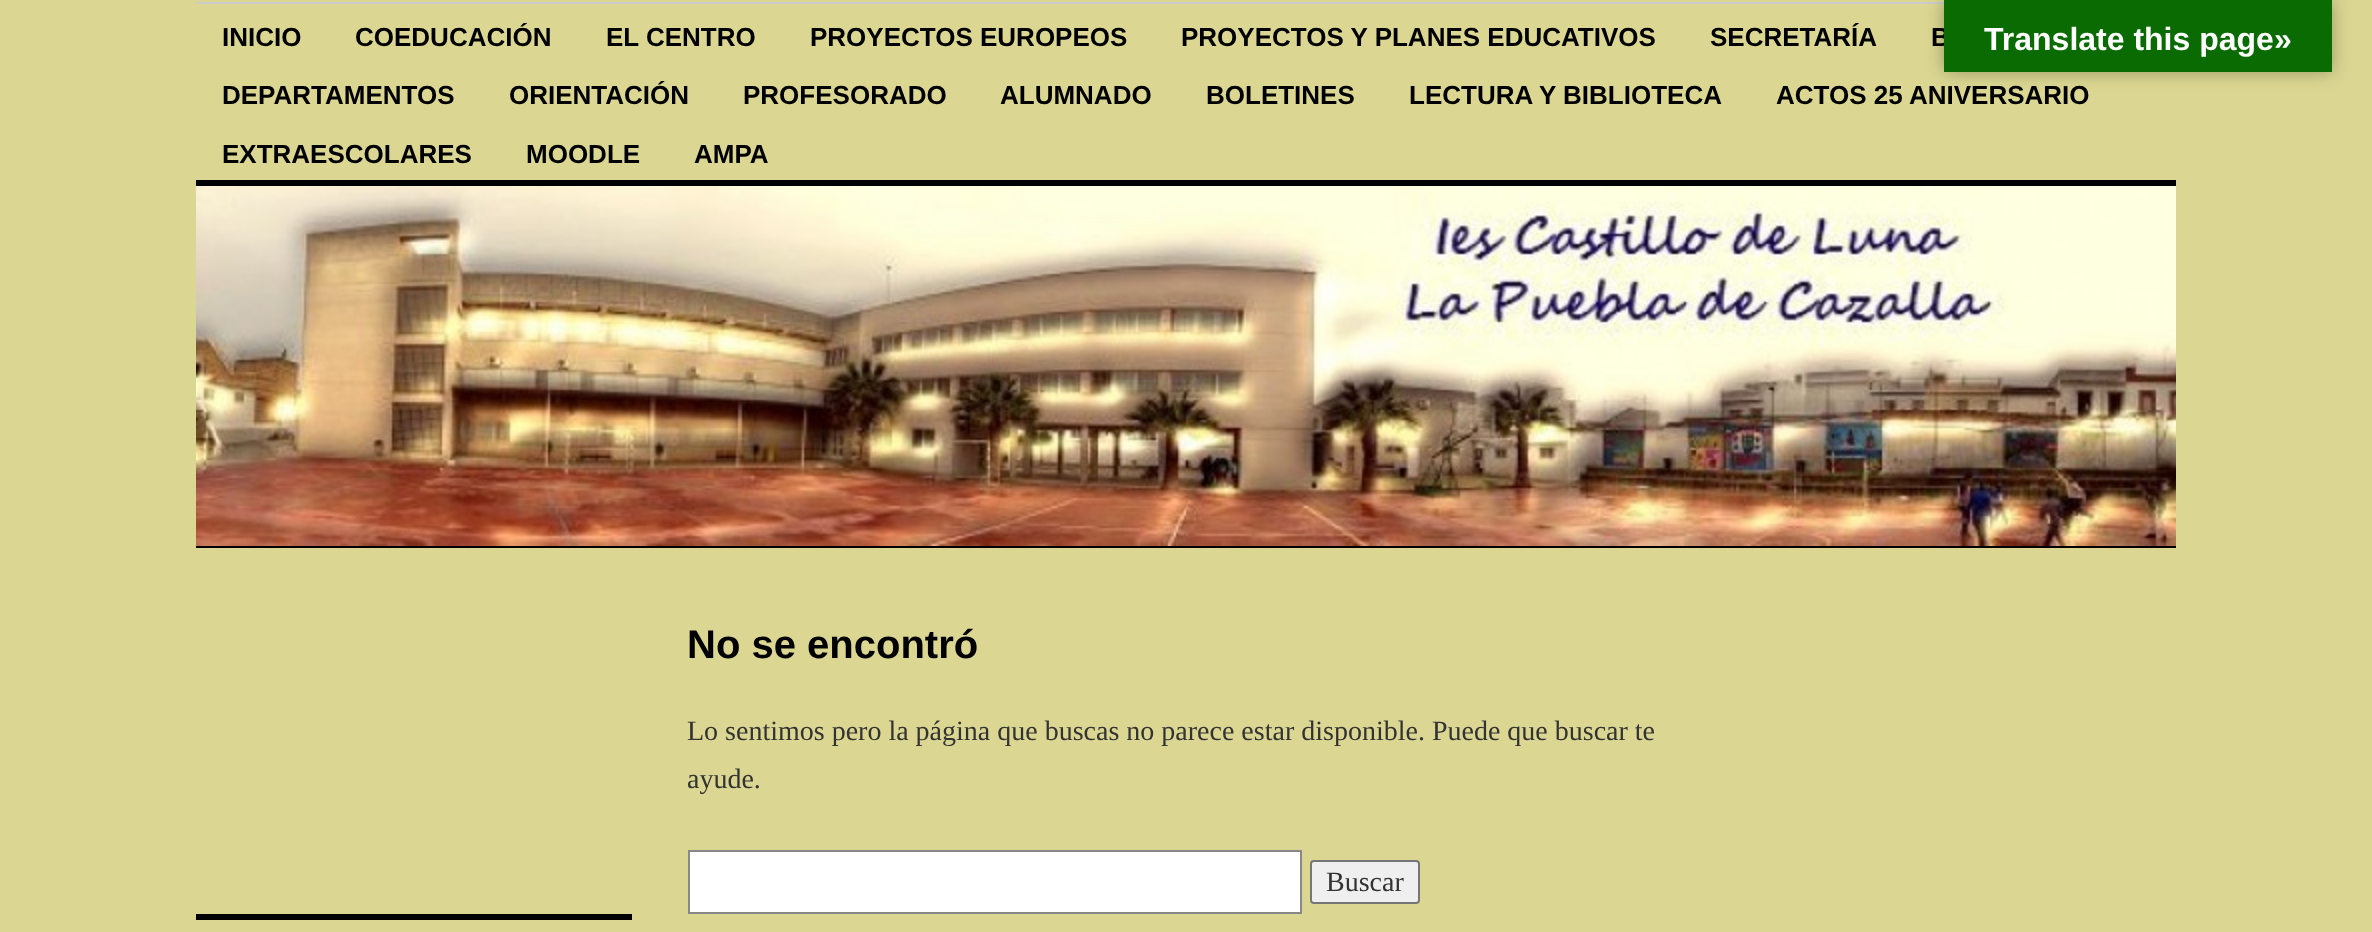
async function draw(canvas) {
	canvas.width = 2372;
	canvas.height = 932;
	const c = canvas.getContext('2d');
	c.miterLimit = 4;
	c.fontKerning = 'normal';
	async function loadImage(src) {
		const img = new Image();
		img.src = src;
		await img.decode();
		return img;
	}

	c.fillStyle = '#dbd792';
	c.fillRect(0, 0, 2372, 932);
	c.fillStyle = '#ccc';
	c.fillRect(196, 2, 1748, 2);
	c.font = 'bold 26px Liberation Sans';
	c.fillStyle = '#000';
	for (const [text, x, y] of [
		['INICIO', 222, 46],
		['COEDUCACIÓN', 355, 46],
		['EL CENTRO', 606, 46],
		['PROYECTOS EUROPEOS', 810, 46],
		['PROYECTOS Y PLANES EDUCATIVOS', 1181, 46],
		['SECRETARÍA', 1710, 46],
		['B', 1931, 46],
		['DEPARTAMENTOS', 222, 104],
		['ORIENTACIÓN', 509, 104],
		['PROFESORADO', 743, 104],
		['ALUMNADO', 1000, 104],
		['BOLETINES', 1206, 104],
		['LECTURA Y BIBLIOTECA', 1409, 104],
		['ACTOS 25 ANIVERSARIO', 1776, 104],
		['EXTRAESCOLARES', 222, 163],
		['MOODLE', 526, 163],
		['AMPA', 694, 163],
	]) {
		c.fillText(text, x, y);
	}
	c.fillRect(196, 180, 1980, 6);
	c.drawImage(await loadImage('img1.png'), 196, 186, 1980, 360);
	c.fillRect(196, 546, 1980, 2);
	c.font = 'bold 40px Liberation Sans';
	c.fillText('No se encontró', 687, 658);
	c.font = '28px Liberation Serif';
	c.fillStyle = '#333';
	c.fillText('Lo sentimos pero la página que buscas no parece estar disponible. Puede que buscar te', 687, 740);
	c.fillText('ayude.', 687, 788);
	c.fillStyle = '#fff';
	c.beginPath();
	c.rect(689, 851, 612, 62);
	c.fill();
	c.strokeStyle = '#888';
	c.lineWidth = 2;
	c.stroke();
	c.fillStyle = '#efefef';
	c.beginPath();
	c.roundRect(1311, 861, 108, 42, 3);
	c.fill();
	c.strokeStyle = '#767676';
	c.stroke();
	c.fillStyle = '#333';
	c.fillText('Buscar', 1326, 891);
	c.fillStyle = '#000';
	c.fillRect(196, 914, 436, 6);
	c.fillStyle = '#0000004d';
	c.filter = 'blur(9px)';
	c.beginPath();
	c.rect(1944, 0, 388, 72);
	c.fill();
	c.filter = 'none';
	c.fillStyle = '#0a6b02';
	c.fillRect(1944, 0, 388, 72);
	c.font = 'bold 32px Liberation Sans';
	c.fillStyle = '#fff';
	c.fillText('Translate this page»', 1984, 50);
}

draw(document.querySelector('canvas'));
